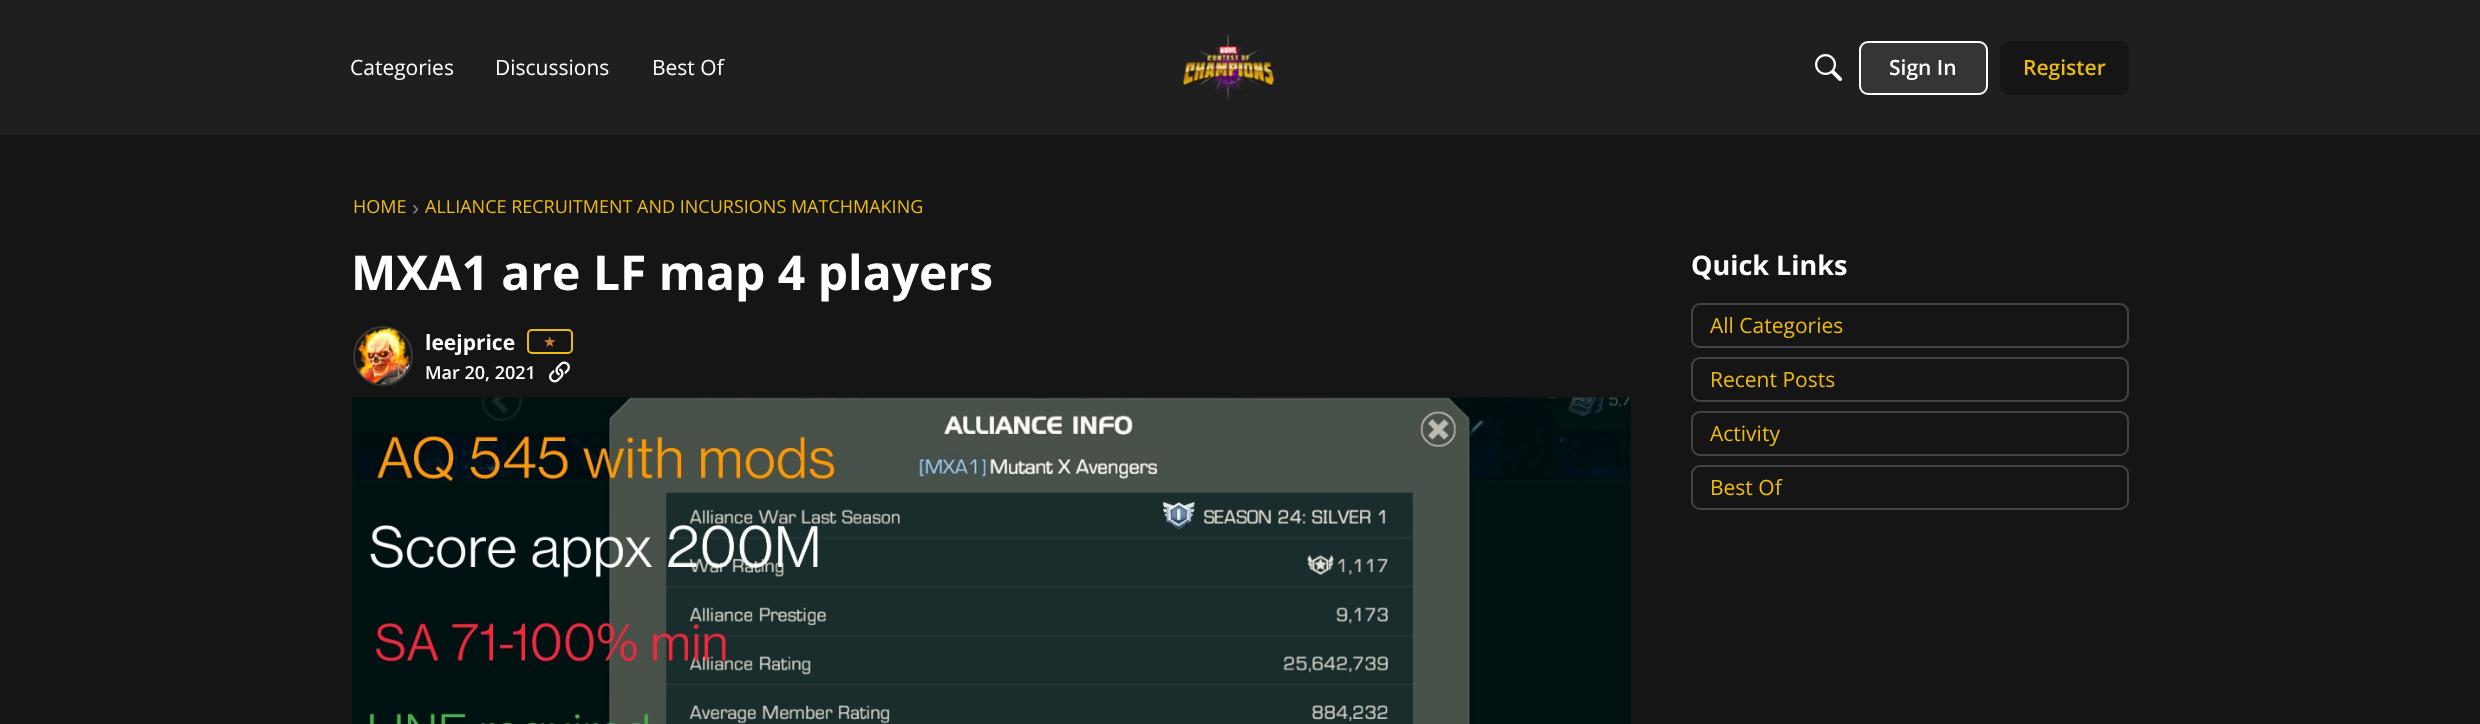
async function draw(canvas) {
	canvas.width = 2480;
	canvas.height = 724;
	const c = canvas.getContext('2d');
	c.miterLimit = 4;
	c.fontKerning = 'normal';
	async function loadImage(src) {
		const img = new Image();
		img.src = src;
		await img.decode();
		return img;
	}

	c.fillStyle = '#151515';
	c.fillRect(0, 0, 2480, 724);
	c.fillStyle = '#1f1f1f';
	c.fillRect(0, 0, 2480, 135);
	c.font = '21px Open Sans';
	c.fillStyle = '#fff';
	for (const [text, x, y] of [
		['Categories', 350, 75],
		['Discussions', 495, 75],
		['Best Of', 652, 75],
	]) {
		c.fillText(text, x, y);
	}
	c.drawImage(await loadImage('img1.png'), 1182, 34, 92, 67);
	c.drawImage(await loadImage('img2.png'), 1815, 54, 27, 27);
	c.fillStyle = '#353535';
	c.beginPath();
	c.roundRect(1860, 42, 127, 52, 8);
	c.fill();
	c.strokeStyle = '#fff';
	c.lineWidth = 2;
	c.stroke();
	c.font = '600 21px Open Sans';
	c.fillStyle = '#fff';
	c.fillText('Sign In', 1889, 75);
	c.fillStyle = '#151515';
	c.beginPath();
	c.roundRect(2000, 41, 129, 54, 9);
	c.fill();
	c.fillStyle = '#eebc11';
	c.fillText('Register', 2023, 75);
	c.font = '18px Open Sans';
	c.fillText('HOME', 353, 213);
	c.font = '21px Liberation Sans';
	c.fillStyle = '#8a8a8a';
	c.fillText('›', 412, 215);
	c.font = '18px Open Sans';
	c.fillStyle = '#eebc11';
	c.fillText('ALLIANCE RECRUITMENT AND INCURSIONS MATCHMAKING', 425, 213);
	c.font = 'bold 48px Open Sans';
	c.fillStyle = '#fff';
	c.fillText('MXA1 are LF map 4 players', 351, 290);
	c.beginPath();
	c.arc(383, 356, 29, 0, 2 * Math.PI);
	c.strokeStyle = '#383838';
	c.stroke();
	c.drawImage(await loadImage('img3.png'), 357, 328, 53, 56);
	c.font = 'bold 21px Open Sans';
	c.fillText('leejprice', 425, 350);
	c.beginPath();
	c.roundRect(528, 330, 44, 23, 4);
	c.strokeStyle = '#eebc11';
	c.stroke();
	c.font = '15px DejaVu Sans';
	c.fillStyle = '#cd7f32';
	c.fillText('★', 543, 347);
	c.font = '600 18px Open Sans';
	c.fillStyle = '#fff';
	c.fillText('Mar 20, 2021', 425, 379);
	c.drawImage(await loadImage('img4.png'), 549, 361, 21, 22);
	c.drawImage(await loadImage('img5.png'), 352, 397, 1279, 327);
	c.font = 'bold 27px Open Sans';
	c.fillText('Quick Links', 1691, 275);
	c.beginPath();
	c.roundRect(1692, 304, 436, 43, 8);
	c.strokeStyle = '#444';
	c.stroke();
	c.font = '21px Open Sans';
	c.fillStyle = '#eebc11';
	c.fillText('All Categories', 1710, 333);
	c.beginPath();
	c.roundRect(1692, 358, 436, 43, 8);
	c.stroke();
	c.fillText('Recent Posts', 1710, 387);
	c.beginPath();
	c.roundRect(1692, 412, 436, 43, 8);
	c.stroke();
	c.fillText('Activity', 1710, 441);
	c.beginPath();
	c.roundRect(1692, 466, 436, 43, 8);
	c.stroke();
	c.fillText('Best Of', 1710, 495);
}

draw(document.querySelector('canvas'));
